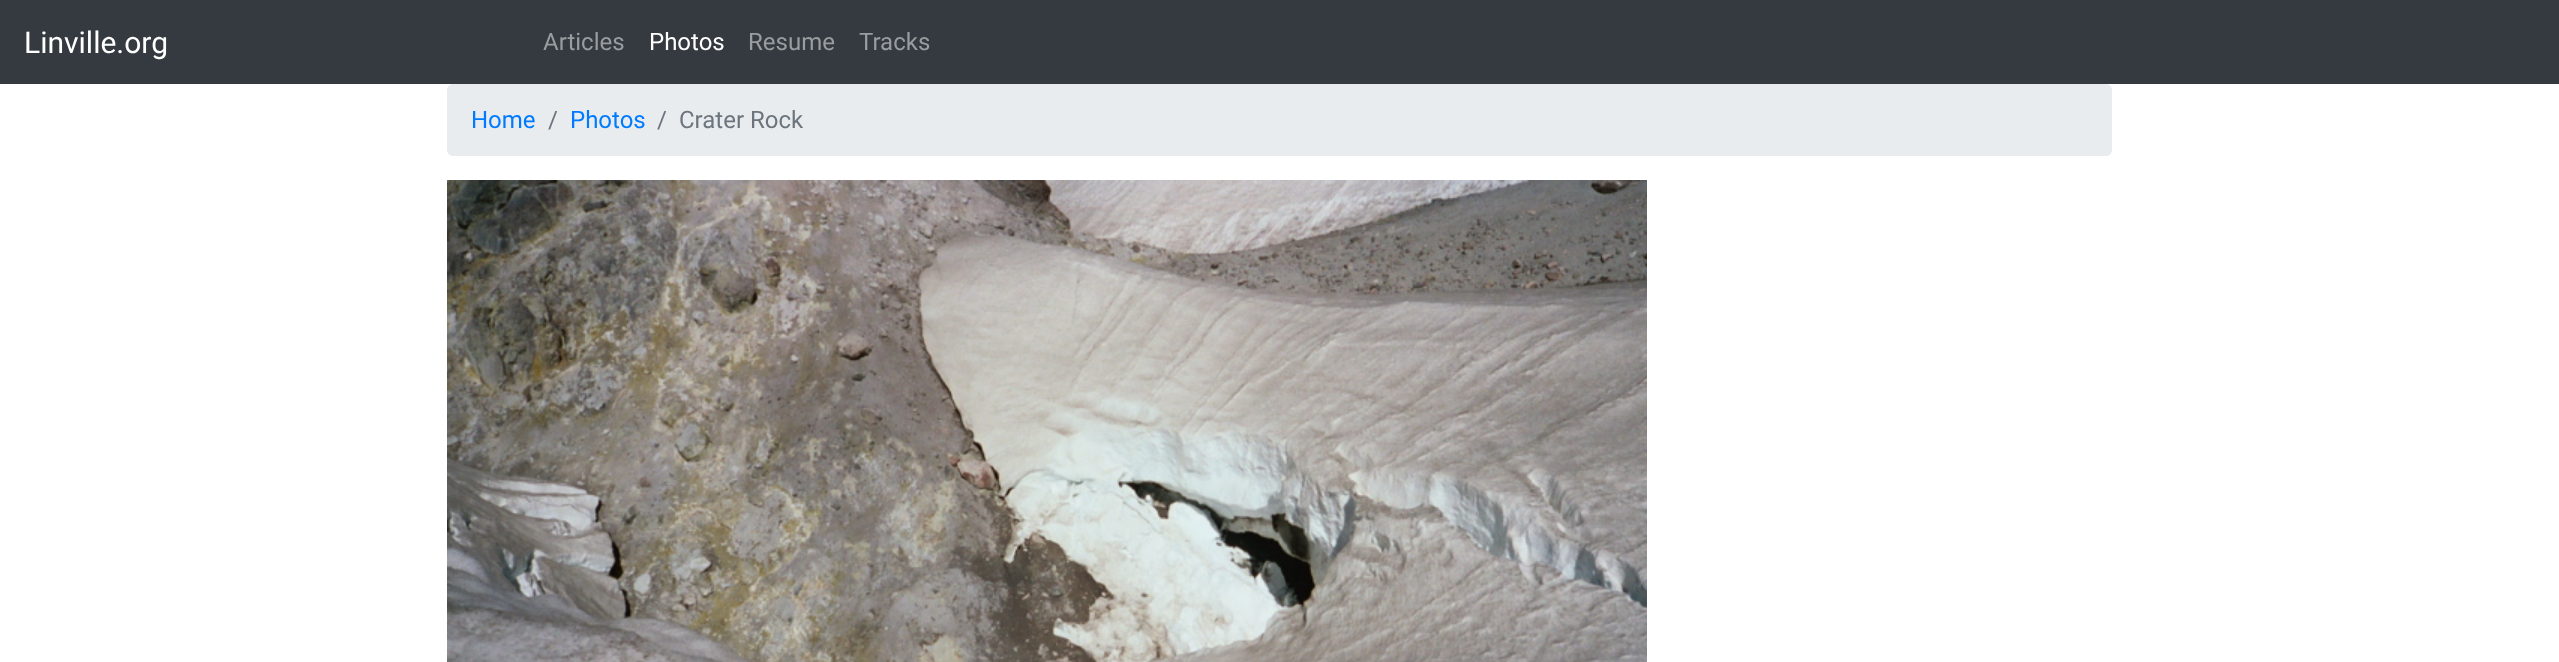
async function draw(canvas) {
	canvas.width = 2559;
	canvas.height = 662;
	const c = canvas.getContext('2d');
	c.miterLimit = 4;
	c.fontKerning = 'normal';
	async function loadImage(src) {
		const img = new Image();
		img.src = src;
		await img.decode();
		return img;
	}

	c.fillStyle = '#fff';
	c.fillRect(0, 0, 2559, 662);
	c.fillStyle = '#343a40';
	c.fillRect(0, 0, 2559, 84);
	c.font = '30px Roboto';
	c.fillStyle = '#fff';
	c.fillText('Linville.org', 24, 53);
	c.font = '24px Roboto';
	c.fillStyle = '#9a9da0';
	c.fillText('Articles', 543, 50);
	c.fillStyle = '#fff';
	c.fillText('Photos', 649, 50);
	c.fillStyle = '#9a9da0';
	c.fillText('Resume', 748, 50);
	c.fillText('Tracks', 859, 50);
	c.fillStyle = '#e9ecef';
	c.beginPath();
	c.roundRect(447, 84, 1665, 72, 6);
	c.fill();
	c.fillStyle = '#007bff';
	c.fillText('Home', 471, 128);
	c.fillStyle = '#6c757d';
	c.fillText('/', 548, 128);
	c.fillStyle = '#007bff';
	c.fillText('Photos', 570, 128);
	c.fillStyle = '#6c757d';
	c.fillText('/', 657, 128);
	c.fillText('Crater Rock', 679, 128);
	c.drawImage(await loadImage('img1.png'), 447, 180, 1200, 482);
}

draw(document.querySelector('canvas'));
